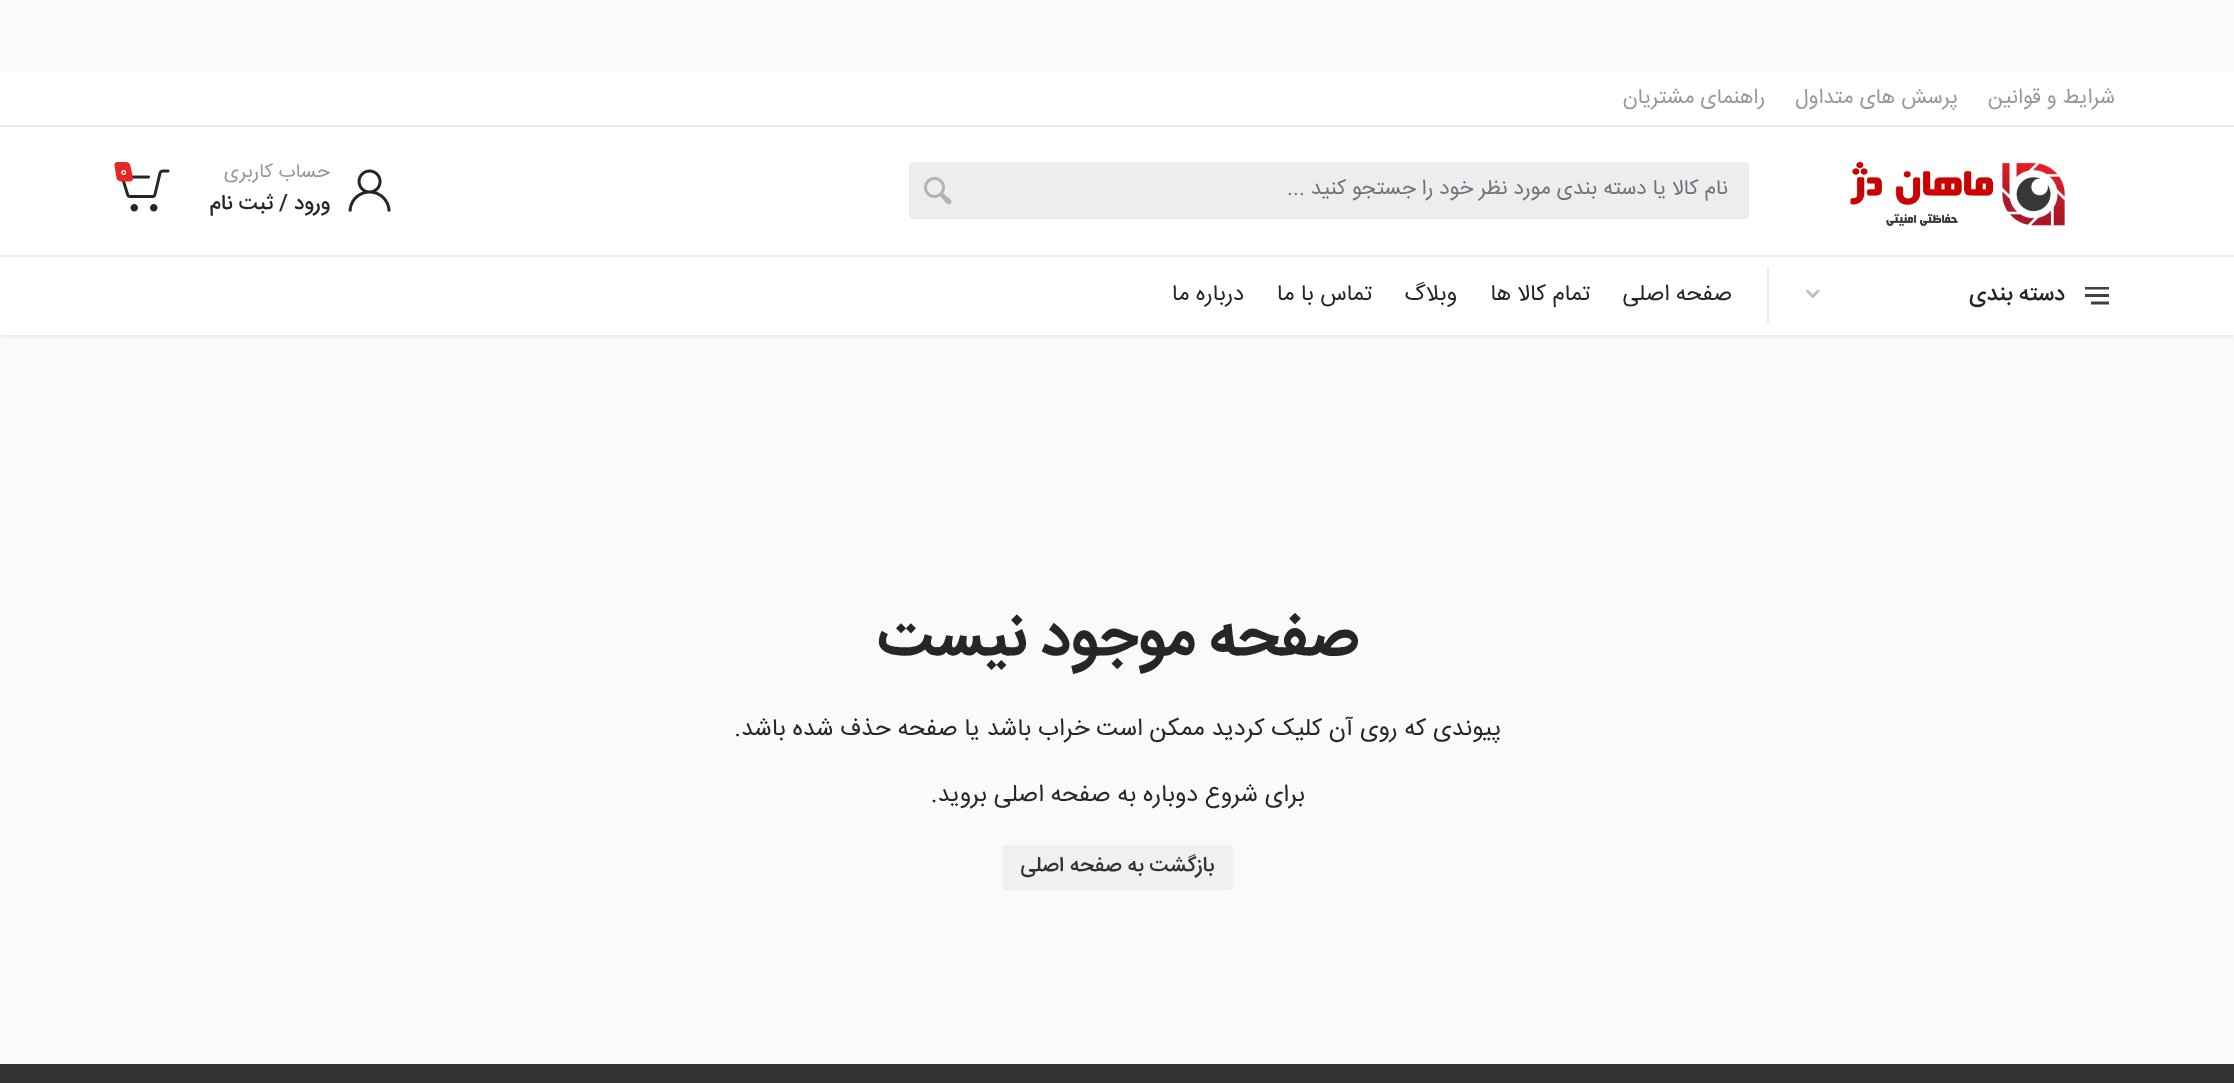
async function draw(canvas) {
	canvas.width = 2234;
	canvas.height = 1083;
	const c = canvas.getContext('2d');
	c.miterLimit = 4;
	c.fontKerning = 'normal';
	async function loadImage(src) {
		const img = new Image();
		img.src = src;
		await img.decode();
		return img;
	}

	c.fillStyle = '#fafafa';
	c.fillRect(0, 0, 2234, 1083);
	c.fillStyle = '#00000017';
	c.filter = 'blur(2px)';
	c.beginPath();
	c.rect(0, 74, 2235, 262);
	c.fill();
	c.filter = 'none';
	c.fillStyle = '#fff';
	c.fillRect(0, 72, 2234, 263);
	c.direction = 'rtl';
	c.font = '21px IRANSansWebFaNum';
	c.fillStyle = '#999';
	for (const [text, x, y] of [
		['شرایط و قوانین', 2115, 103],
		['پرسش های متداول', 1958, 103],
		['راهنمای مشتریان', 1765, 103],
	]) {
		c.fillText(text, x, y);
	}
	c.fillStyle = '#ebebeb';
	c.fillRect(0, 125, 2234, 2);
	c.drawImage(await loadImage('img1.png'), 1850, 161, 215, 66);
	c.fillStyle = '#ededed';
	c.beginPath();
	c.roundRect(910, 163, 838, 55, 3);
	c.fill();
	c.strokeStyle = '#ededed';
	c.lineWidth = 2;
	c.stroke();
	c.fillStyle = '#6c757d';
	c.fillText('نام کالا یا دسته بندی مورد نظر خود را جستجو کنید ...', 1728, 194);
	c.drawImage(await loadImage('img2.png'), 924, 177, 28, 28);
	c.drawImage(await loadImage('img3.png'), 348, 169, 43, 43);
	c.font = '19.5px IRANSansWebFaNum';
	c.fillStyle = '#999';
	c.fillText('حساب کاربری', 330, 177);
	c.font = '500 21px IRANSansWebFaNum';
	c.fillStyle = '#262626';
	c.fillText('ورود / ثبت نام', 330, 209);
	c.drawImage(await loadImage('img4.png'), 122, 169, 48, 43);
	c.fillStyle = '#e52727';
	c.beginPath();
	c.moveTo(117.5, 162);
	c.lineTo(126, 162);
	c.bezierCurveTo(128, 162, 130, 163.5, 130.5, 166);
	c.lineTo(133, 178);
	c.bezierCurveTo(133, 180, 132, 181.5, 130, 181.5);
	c.lineTo(121, 181.5);
	c.bezierCurveTo(119, 181.5, 117, 180, 116.5, 178);
	c.lineTo(114.5, 166);
	c.bezierCurveTo(114, 163.5, 115.5, 162, 117.5, 162);
	c.closePath();
	c.fill();
	c.direction = 'ltr';
	c.font = '15px IRANSansWebFaNum';
	c.fillStyle = '#fff';
	c.fillText('0', 120, 176);
	c.fillStyle = '#ebebeb';
	c.fillRect(0, 255, 2234, 2);
	c.drawImage(await loadImage('img5.png'), 2085, 287, 24, 18);
	c.direction = 'rtl';
	c.font = '500 22.5px IRANSansWebFaNum';
	c.fillStyle = '#262626';
	c.fillText('دسته بندی', 2065, 300);
	c.drawImage(await loadImage('img6.png'), 1806, 290, 14, 9);
	c.fillStyle = '#ebebeb';
	c.fillRect(1767, 267, 2, 57);
	c.font = '22.5px IRANSansWebFaNum';
	c.fillStyle = '#262626';
	for (const [text, x, y] of [
		['صفحه اصلی', 1732, 300],
		['تمام کالا ها', 1590, 300],
		['وبلاگ', 1457, 300],
		['تماس با ما', 1372, 300],
		['درباره ما', 1244, 300],
	]) {
		c.fillText(text, x, y);
	}
	c.font = 'bold 60px IRANSansWebFaNum';
	c.fillText('صفحه موجود نیست', 1358, 654);
	c.font = '24px IRANSansWebFaNum';
	c.fillText('پیوندی که روی آن کلیک کردید ممکن است خراب باشد یا صفحه حذف شده باشد.', 1501, 735);
	c.fillText('برای شروع دوباره به صفحه اصلی بروید.', 1305, 801);
	c.fillStyle = '#f0f0f0';
	c.beginPath();
	c.roundRect(1002, 845, 231, 45, 3);
	c.fill();
	c.font = '500 21px IRANSansWebFaNum';
	c.fillStyle = '#333';
	c.fillText('بازگشت به صفحه اصلی', 1214, 871);
	c.fillRect(0, 1064, 2234, 19);
}

draw(document.querySelector('canvas'));
